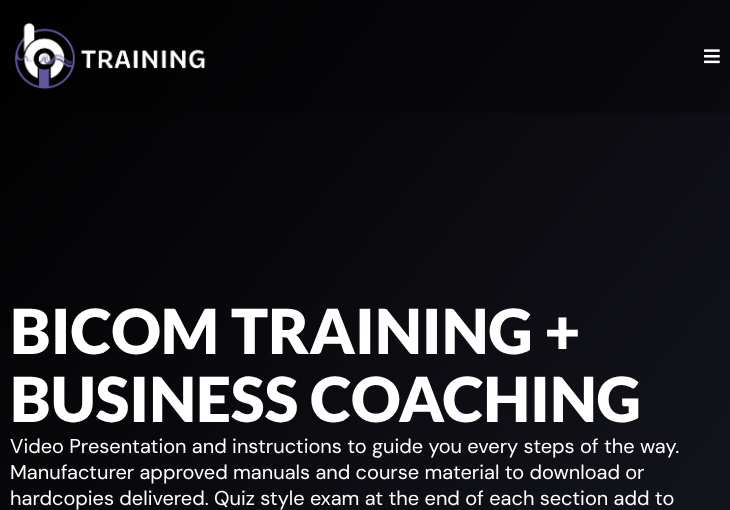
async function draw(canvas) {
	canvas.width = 730;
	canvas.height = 510;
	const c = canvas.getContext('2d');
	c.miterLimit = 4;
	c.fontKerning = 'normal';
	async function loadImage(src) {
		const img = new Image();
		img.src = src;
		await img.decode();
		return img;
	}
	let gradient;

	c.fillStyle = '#fff';
	c.fillRect(0, 0, 730, 510);
	gradient = c.createLinearGradient(-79, 67, 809, 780);
	gradient.addColorStop(0, '#000');
	gradient.addColorStop(1, '#111119');
	c.fillStyle = gradient;
	c.fillRect(0, 0, 730, 113);
	c.drawImage(await loadImage('img1.png'), 14, 22, 192, 68);
	c.drawImage(await loadImage('img2.png'), 704, 49, 16, 15);
	gradient = c.createLinearGradient(-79, 67, 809, 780);
	gradient.addColorStop(0, '#000');
	gradient.addColorStop(1, '#181823');
	c.fillStyle = gradient;
	c.fillRect(0, 113, 730, 397);
	c.font = '900 62px Lato';
	c.fillStyle = '#fff';
	c.fillText('BICOM TRAINING +', 10, 354);
	c.fillText('BUSINESS COACHING', 10, 422);
	c.font = '20px DM Sans';
	for (const [text, x, y] of [
		['Video Presentation and instructions to guide you every steps of the way.', 10, 453],
		['Manufacturer approved manuals and course material to download or', 10, 479],
		['hardcopies delivered. Quiz style exam at the end of each section add to', 10, 505],
	]) {
		c.fillText(text, x, y);
	}
}

draw(document.querySelector('canvas'));
